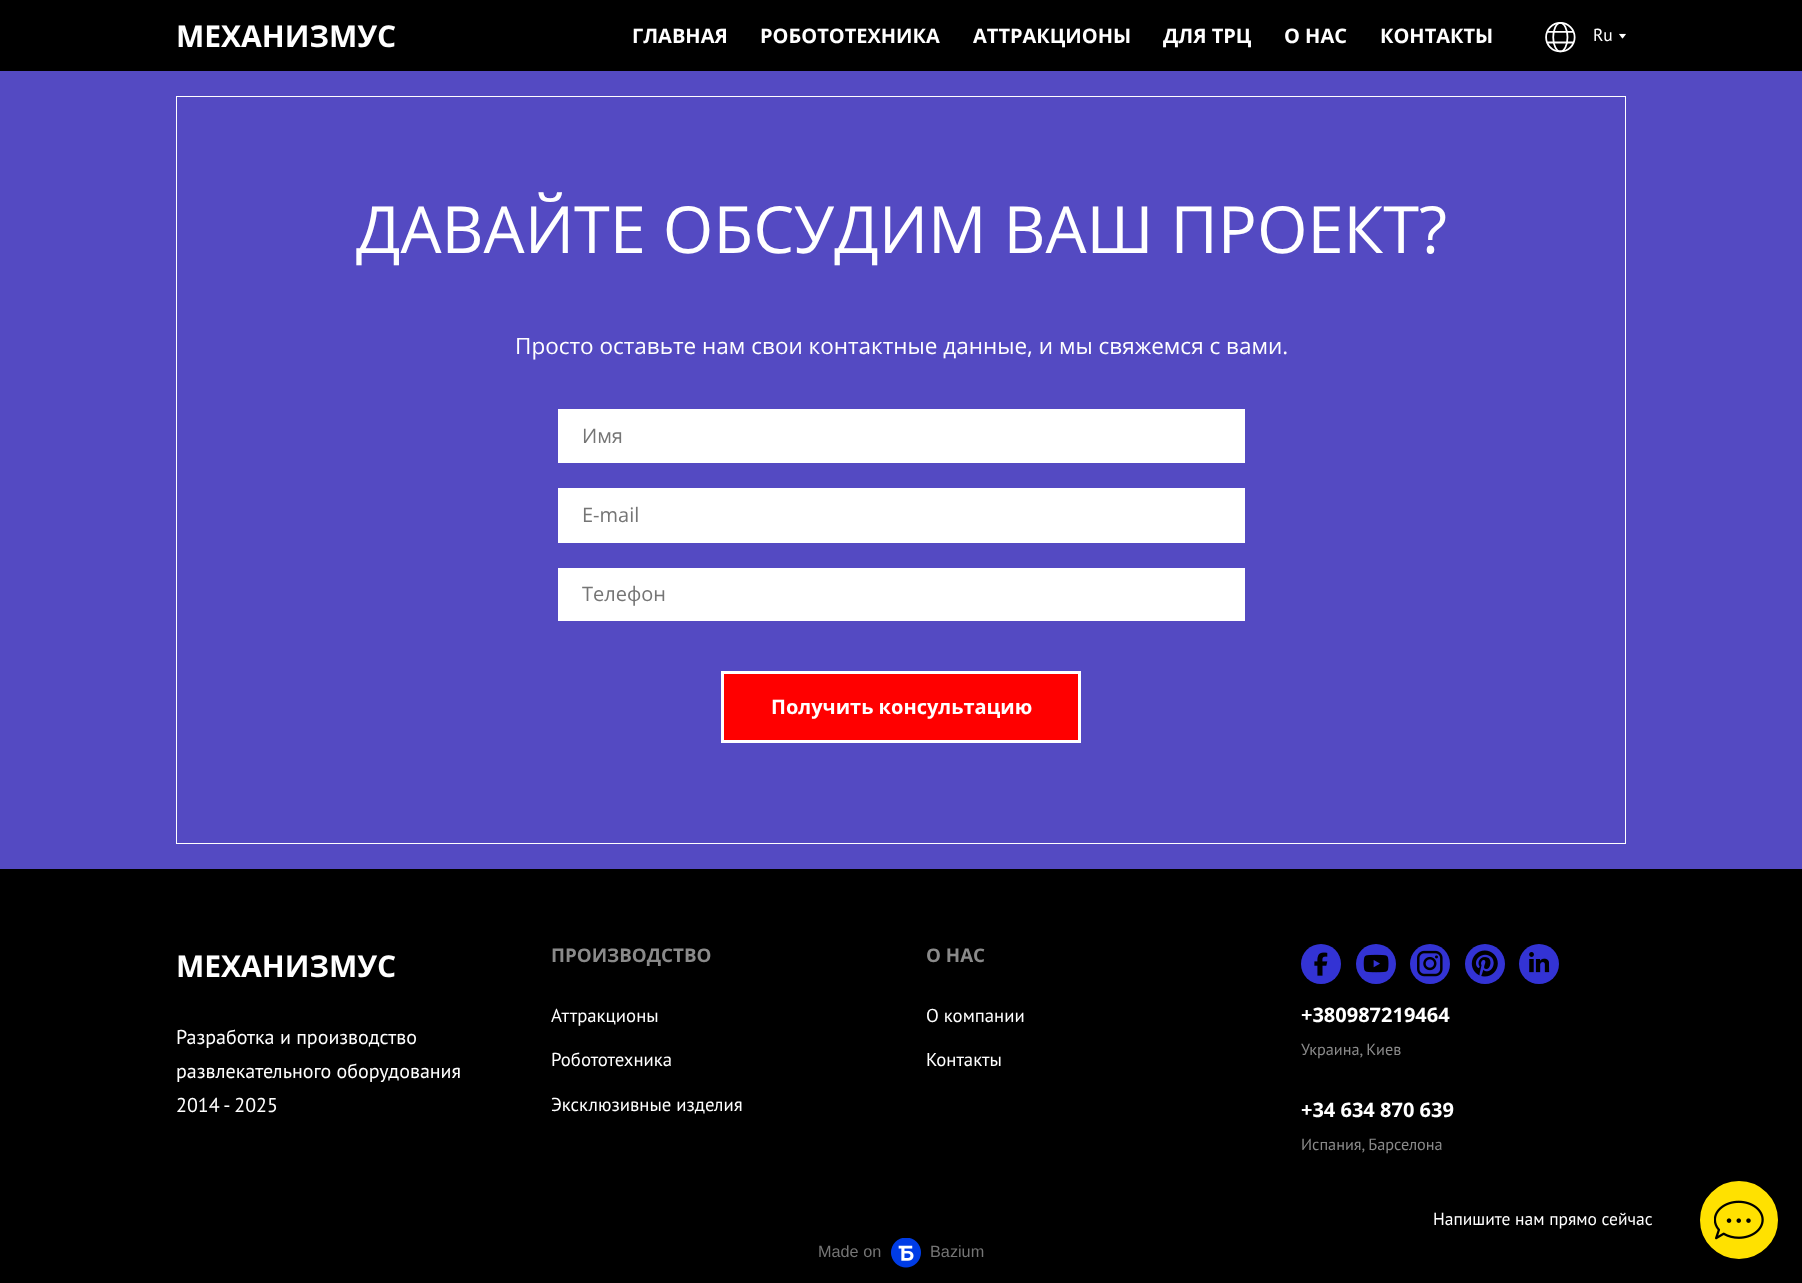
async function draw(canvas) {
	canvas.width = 1802;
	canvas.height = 1283;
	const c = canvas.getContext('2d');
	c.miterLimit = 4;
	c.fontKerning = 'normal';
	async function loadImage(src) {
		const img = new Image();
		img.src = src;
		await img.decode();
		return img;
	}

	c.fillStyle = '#000';
	c.fillRect(0, 0, 1802, 1283);
	c.font = 'bold 30px Open Sans';
	c.fillStyle = '#fff';
	c.fillText('МЕХАНИЗМУС', 176, 47);
	c.font = 'bold 20px Open Sans';
	for (const [text, x, y] of [
		['ГЛАВНАЯ', 632, 43],
		['РОБОТОТЕХНИКА', 760, 43],
		['АТТРАКЦИОНЫ', 973, 43],
		['ДЛЯ ТРЦ', 1163, 43],
		['О НАС', 1284, 43],
		['КОНТАКТЫ', 1380, 43],
	]) {
		c.fillText(text, x, y);
	}
	c.drawImage(await loadImage('img1.png'), 1545, 22, 31, 31);
	c.font = '17.5px PT Sans';
	c.fillText('Ru', 1593, 41);
	c.drawImage(await loadImage('img2.png'), 1619, 33, 7, 6);
	c.fillText('Напишите нам прямо сейчас', 1433, 1225);
	c.fillStyle = '#ffe100';
	c.beginPath();
	c.arc(1739, 1220, 37.5, 0, 2 * Math.PI);
	c.fill();
	c.strokeStyle = '#ffe100';
	c.lineWidth = 3;
	c.stroke();
	c.drawImage(await loadImage('img3.png'), 1714, 1200, 50, 40);
	c.fillStyle = '#544ac2';
	c.fillRect(0, 71, 1802, 798);
	c.strokeStyle = '#fff';
	c.lineWidth = 1;
	c.strokeRect(176.5, 96.5, 1449, 747);
	c.font = '65px Open Sans';
	c.fillStyle = '#fff';
	c.fillText('ДАВАЙТЕ ОБСУДИМ ВАШ ПРОЕКТ?', 356, 253);
	c.font = '22.5px Open Sans';
	c.fillText('Просто оставьте нам свои контактные данные, и мы свяжемся с вами.', 515, 354);
	c.fillRect(558, 409, 687, 54);
	c.font = '20px Open Sans';
	c.fillStyle = '#757575';
	c.fillText('Имя', 582, 443);
	c.fillStyle = '#fff';
	c.fillRect(558, 488, 687, 55);
	c.fillStyle = '#757575';
	c.fillText('E-mail', 582, 522);
	c.fillStyle = '#fff';
	c.fillRect(558, 568, 687, 53);
	c.fillStyle = '#757575';
	c.fillText('Телефон', 582, 601);
	c.fillStyle = '#f00';
	c.beginPath();
	c.rect(722.5, 672.5, 357, 69);
	c.fill();
	c.lineWidth = 3;
	c.stroke();
	c.font = 'bold 20px Open Sans';
	c.fillStyle = '#fff';
	c.fillText('Получить консультацию', 771, 714);
	c.font = 'bold 30px Open Sans';
	c.fillText('МЕХАНИЗМУС', 176, 977);
	c.font = '20px PT Sans';
	for (const [text, x, y] of [
		['Разработка и производство', 176, 1044],
		['развлекательного оборудования', 176, 1078],
		['2014 - 2025', 176, 1112],
	]) {
		c.fillText(text, x, y);
	}
	c.font = 'bold 18.75px Open Sans';
	c.fillStyle = '#8a8a8a';
	c.fillText('ПРОИЗВОДСТВО', 551, 962);
	c.font = '18.75px PT Sans';
	c.fillStyle = '#fff';
	for (const [text, x, y] of [
		['Аттракционы', 551, 1022],
		['Робототехника', 551, 1066],
		['Эксклюзивные изделия', 551, 1111],
	]) {
		c.fillText(text, x, y);
	}
	c.font = 'bold 18.75px Open Sans';
	c.fillStyle = '#8a8a8a';
	c.fillText('О НАС', 926, 962);
	c.font = '18.75px PT Sans';
	c.fillStyle = '#fff';
	c.fillText('О компании', 926, 1022);
	c.fillText('Контакты', 926, 1066);
	c.fillStyle = '#3333d4';
	c.beginPath();
	c.arc(1321, 964, 20, 0, 2 * Math.PI);
	c.fill();
	c.drawImage(await loadImage('img4.png'), 1314, 952, 14, 24);
	c.beginPath();
	c.arc(1376, 964, 20, 0, 2 * Math.PI);
	c.fill();
	c.drawImage(await loadImage('img5.png'), 1363, 954, 26, 19);
	c.beginPath();
	c.arc(1430, 964, 20, 0, 2 * Math.PI);
	c.fill();
	c.drawImage(await loadImage('img6.png'), 1417, 950, 26, 27);
	c.beginPath();
	c.arc(1485, 964, 20, 0, 2 * Math.PI);
	c.fill();
	c.drawImage(await loadImage('img7.png'), 1471, 950, 27, 27);
	c.beginPath();
	c.arc(1539, 964, 20, 0, 2 * Math.PI);
	c.fill();
	c.drawImage(await loadImage('img8.png'), 1529, 952, 21, 21);
	c.font = 'bold 20px Open Sans';
	c.fillStyle = '#fff';
	c.fillText('+380987219464', 1301, 1022);
	c.font = '16.25px PT Sans';
	c.fillStyle = '#8a8a8a';
	c.fillText('Украина, Киев', 1301, 1055);
	c.font = 'bold 20px Open Sans';
	c.fillStyle = '#fff';
	c.fillText('+34 634 870 639', 1301, 1117);
	c.font = '16.25px PT Sans';
	c.fillStyle = '#8a8a8a';
	c.fillText('Испания, Барселона', 1301, 1150);
	c.font = '16.25px Liberation Sans';
	c.fillStyle = '#757575';
	c.fillText('Made on', 818, 1257);
	c.drawImage(await loadImage('img9.png'), 891, 1238, 30, 30);
	c.fillText('Bazium', 930, 1257);
}

draw(document.querySelector('canvas'));
